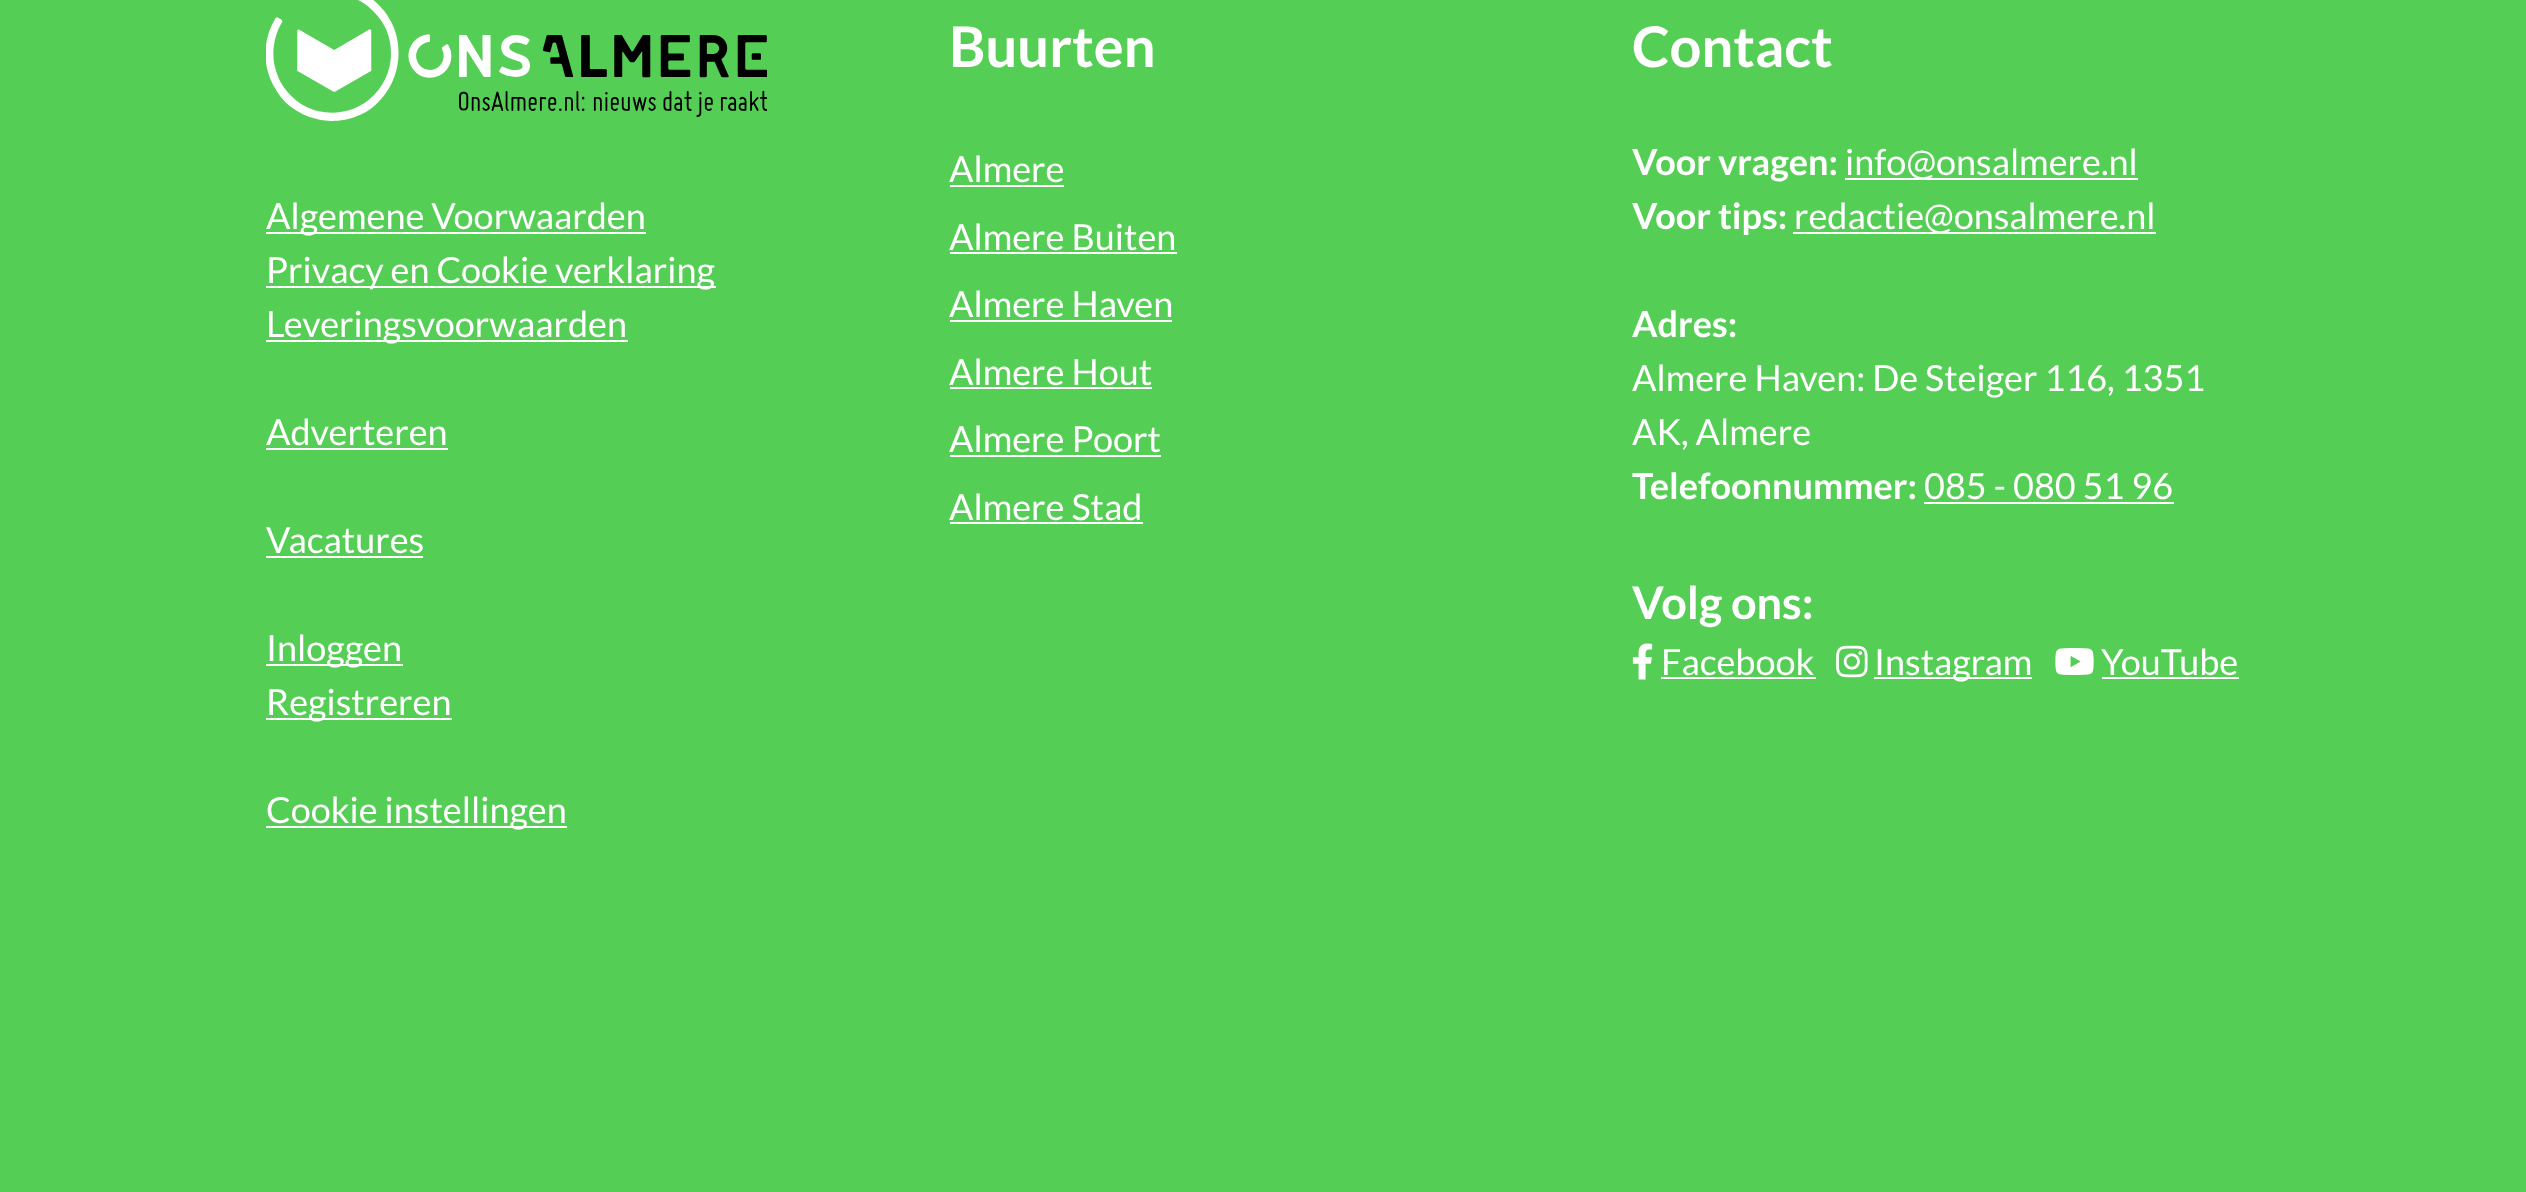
async function draw(canvas) {
	canvas.width = 2526;
	canvas.height = 1192;
	const c = canvas.getContext('2d');
	c.miterLimit = 4;
	c.fontKerning = 'normal';
	async function loadImage(src) {
		const img = new Image();
		img.src = src;
		await img.decode();
		return img;
	}

	c.fillStyle = '#54ce54';
	c.fillRect(0, 0, 2526, 1192);
	c.drawImage(await loadImage('img1.png'), 266, 0, 501, 121);
	c.fillStyle = '#fff';
	c.fillRect(266, 232, 380, 2);
	c.font = '36px Lato';
	c.fillText('Algemene Voorwaarden', 266, 229);
	c.fillRect(266, 286, 450, 2);
	c.fillText('Privacy en Cookie verklaring', 266, 283);
	c.fillRect(266, 340, 362, 2);
	c.fillText('Leveringsvoorwaarden', 266, 337);
	c.fillText('Adverteren', 266, 445);
	c.fillRect(266, 448, 182, 2);
	c.fillText('Vacatures', 266, 553);
	c.fillRect(266, 556, 157, 2);
	c.fillRect(266, 664, 137, 2);
	c.fillText('Inloggen', 266, 661);
	c.fillRect(266, 718, 186, 2);
	c.fillText('Registreren', 266, 715);
	c.fillRect(266, 826, 301, 2);
	c.fillText('Cookie instellingen', 266, 823);
	c.font = 'bold 56px Lato';
	c.fillText('Buurten', 949, 67);
	c.font = '36px Lato';
	c.fillText('Almere', 949, 182);
	c.fillRect(950, 185, 114, 2);
	c.fillText('Almere Buiten', 949, 250);
	c.fillRect(950, 252, 227, 2);
	c.fillText('Almere Haven', 949, 317);
	c.fillRect(950, 320, 222, 2);
	c.fillText('Almere Hout', 949, 385);
	c.fillRect(950, 387, 202, 2);
	c.fillText('Almere Poort', 949, 452);
	c.fillRect(950, 455, 211, 2);
	c.fillText('Almere Stad', 949, 520);
	c.fillRect(950, 522, 193, 2);
	c.font = 'bold 56px Lato';
	c.fillText('Contact', 1632, 67);
	c.font = 'bold 36px Lato';
	c.fillText('Voor vragen:', 1632, 175);
	c.fillRect(1845, 178, 293, 2);
	c.font = '36px Lato';
	c.fillText('info@onsalmere.nl', 1845, 175);
	c.font = 'bold 36px Lato';
	c.fillText('Voor tips:', 1632, 229);
	c.fillRect(1793, 232, 363, 2);
	c.font = '36px Lato';
	c.fillText('redactie@onsalmere.nl', 1794, 229);
	c.font = 'bold 36px Lato';
	c.fillText('Adres:', 1632, 337);
	c.font = '36px Lato';
	c.fillText('Almere Haven: De Steiger 116, 1351', 1632, 391);
	c.fillText('AK, Almere', 1632, 445);
	c.font = 'bold 36px Lato';
	c.fillText('Telefoonnummer:', 1632, 499);
	c.font = '36px Lato';
	c.fillText('085 - 080 51 96', 1924, 499);
	c.fillRect(1924, 502, 250, 2);
	c.font = 'bold 45px Lato';
	c.fillText('Volg ons:', 1632, 619);
	c.drawImage(await loadImage('img2.png'), 1632, 643, 21, 37);
	c.font = '36px Lato';
	c.fillText('Facebook', 1661, 675);
	c.fillRect(1661, 677, 155, 2);
	c.drawImage(await loadImage('img3.png'), 1836, 645, 32, 33);
	c.fillRect(1874, 677, 158, 2);
	c.fillText('Instagram', 1874, 675);
	c.drawImage(await loadImage('img4.png'), 2055, 648, 39, 27);
	c.fillText('YouTube', 2101, 675);
	c.fillRect(2102, 677, 137, 2);
}

draw(document.querySelector('canvas'));
